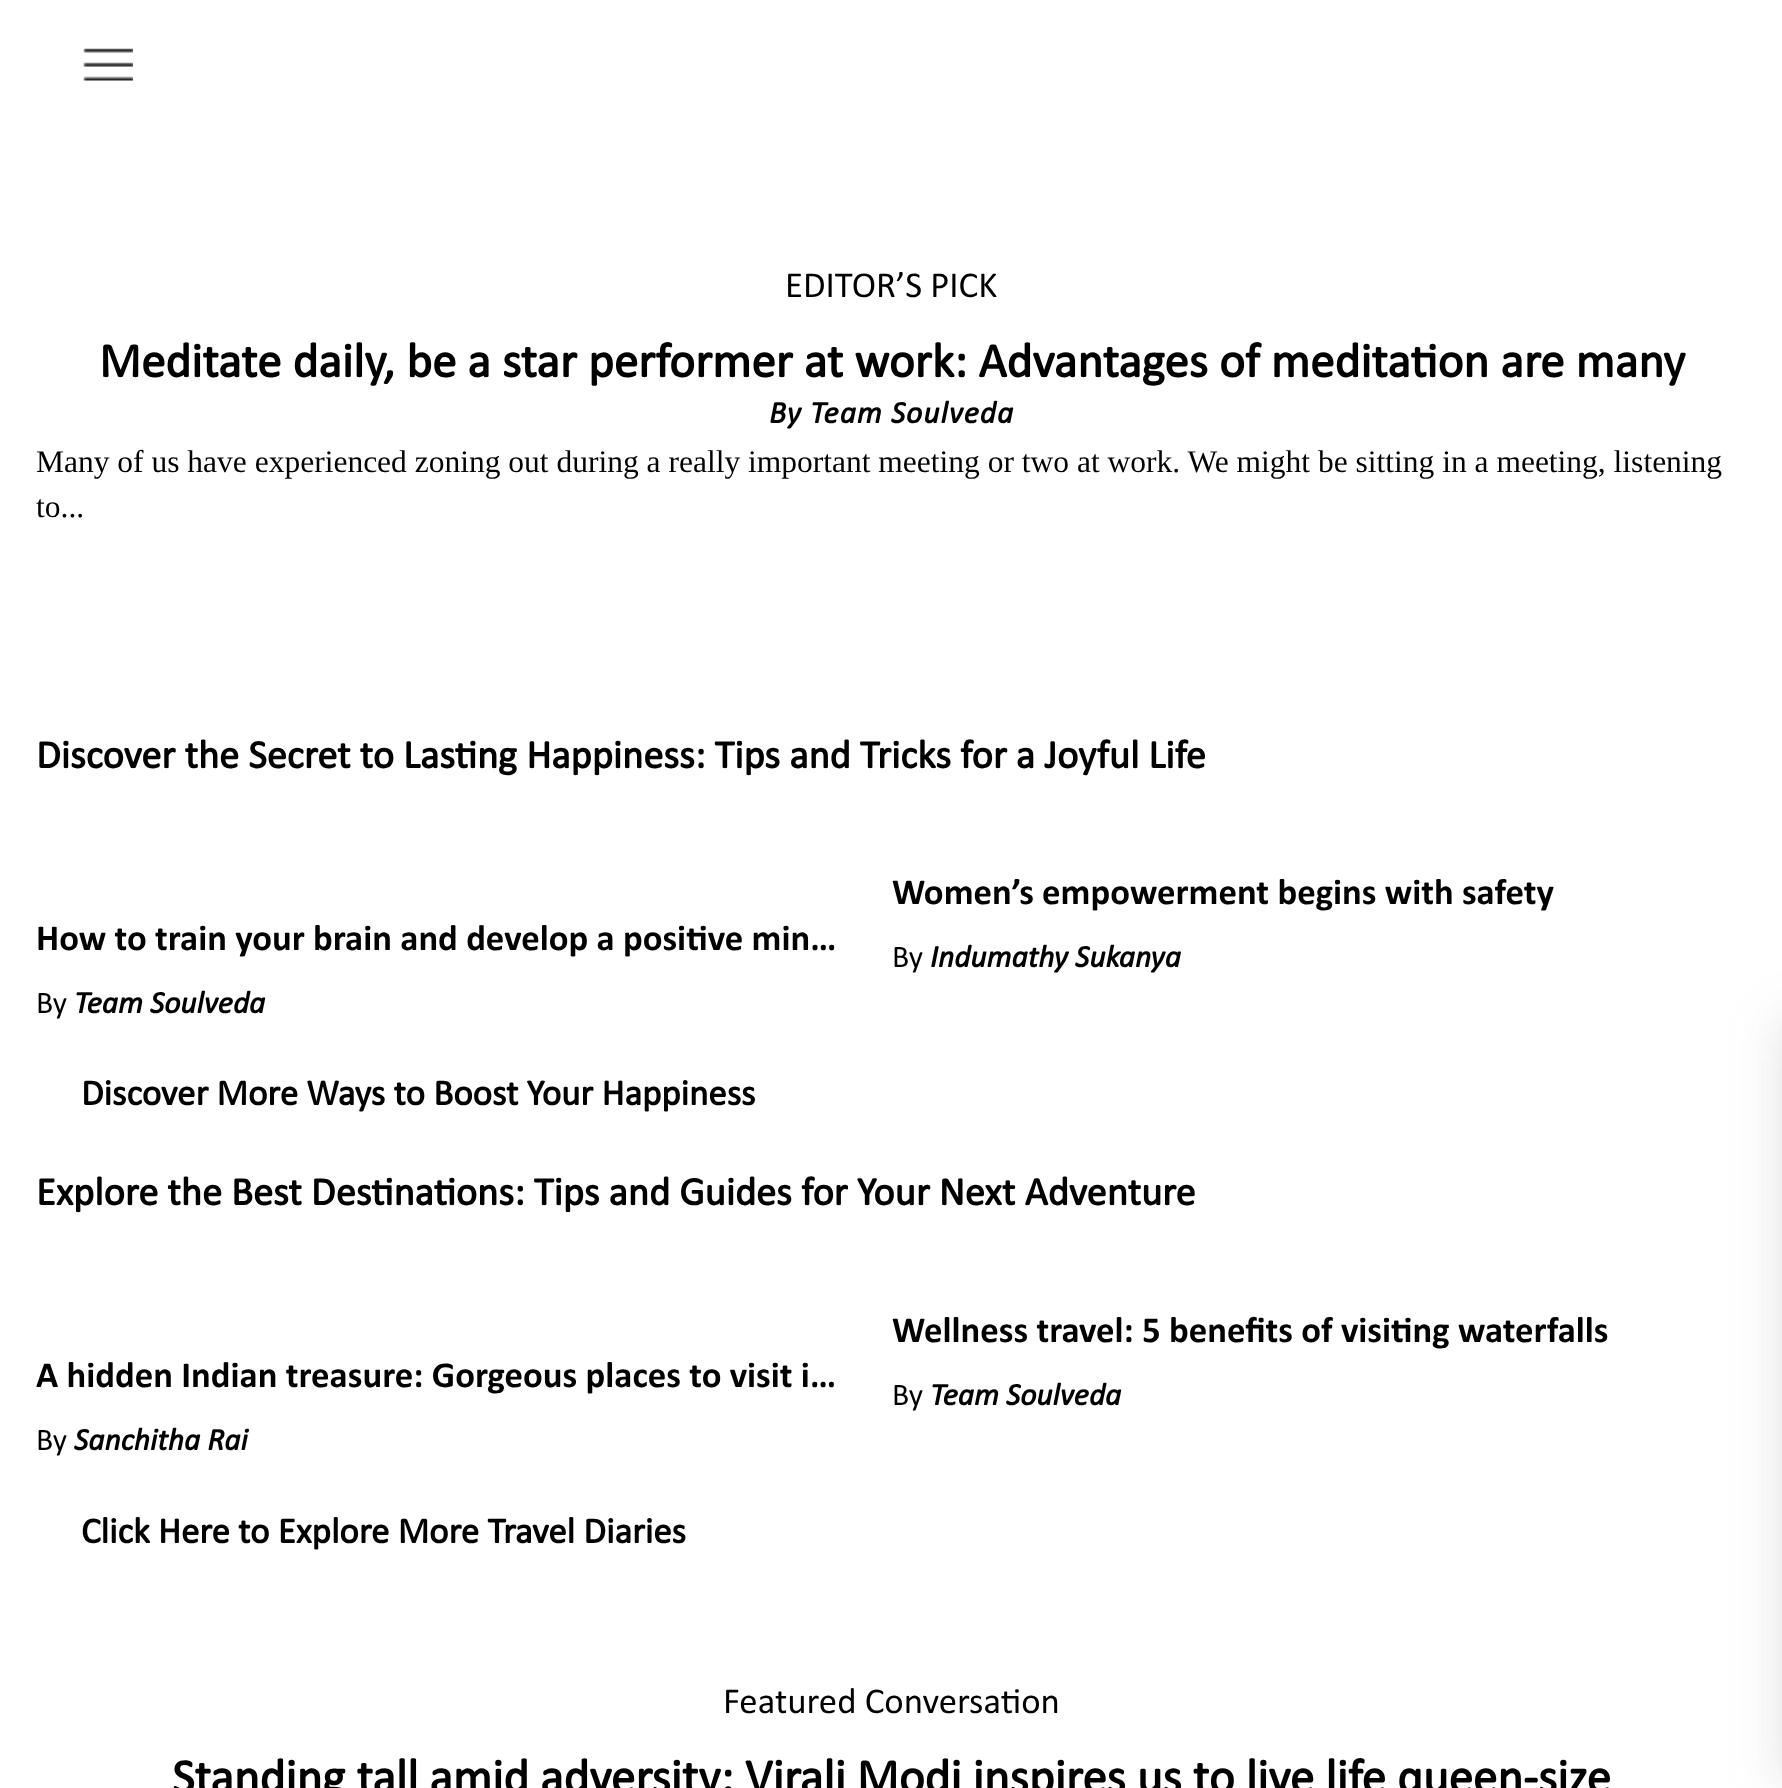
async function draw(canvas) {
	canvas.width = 1782;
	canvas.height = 1788;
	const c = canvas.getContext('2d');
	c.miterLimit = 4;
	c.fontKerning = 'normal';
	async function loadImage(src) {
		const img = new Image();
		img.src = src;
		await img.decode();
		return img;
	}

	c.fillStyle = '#fff';
	c.fillRect(0, 0, 1782, 1788);
	c.drawImage(await loadImage('img1.png'), 83, 48, 50, 33);
	c.font = '36.75px Calibri';
	c.fillStyle = '#000';
	c.fillText('EDITOR’S PICK', 785, 297);
	c.font = 'bold 49px Calibri';
	c.fillText('Meditate daily, be a star performer at work: Advantages of meditation are many', 99, 377);
	c.letterSpacing = '1px';
	c.font = 'italic bold 31.5px Calibri';
	c.fillText('By Team Soulveda', 769, 423);
	c.letterSpacing = '0px';
	c.font = '31.5px Liberation Serif';
	c.fillText('Many of us have experienced zoning out during a really important meeting or two at work. We might be sitting in a meeting, listening', 36, 472);
	c.fillText('to...', 36, 517);
	c.font = 'bold 40.25px Calibri';
	c.fillText('Discover the Secret to Lasting Happiness: Tips and Tricks for a Joyful Life', 36, 768);
	c.font = 'bold 36.75px "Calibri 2"';
	c.fillText('How to train your brain and develop a positive min…', 36, 950);
	c.font = '31.5px Calibri';
	c.fillText('By', 36, 1013);
	c.font = 'italic bold 31.5px Calibri';
	c.fillText('Team Soulveda', 74, 1013);
	c.font = 'bold 36.75px "Calibri 2"';
	c.fillText('Women’s empowerment begins with safety', 892, 904);
	c.font = '31.5px Calibri';
	c.fillText('By', 892, 967);
	c.font = 'italic bold 31.5px Calibri';
	c.fillText('Indumathy Sukanya', 930, 967);
	c.font = 'bold 36.75px Calibri';
	c.fillText('Discover More Ways to Boost Your Happiness', 81, 1105);
	c.font = 'bold 40.25px Calibri';
	c.fillText('Explore the Best Destinations: Tips and Guides for Your Next Adventure', 36, 1205);
	c.font = 'bold 36.75px "Calibri 2"';
	c.fillText('A hidden Indian treasure: Gorgeous places to visit i…', 36, 1387);
	c.font = '31.5px Calibri';
	c.fillText('By', 36, 1450);
	c.font = 'italic bold 31.5px Calibri';
	c.fillText('Sanchitha Rai', 74, 1450);
	c.font = 'bold 36.75px "Calibri 2"';
	c.fillText('Wellness travel: 5 benefits of visiting waterfalls', 892, 1342);
	c.font = '31.5px Calibri';
	c.fillText('By', 892, 1405);
	c.font = 'italic bold 31.5px Calibri';
	c.fillText('Team Soulveda', 930, 1405);
	c.font = 'bold 36.75px Calibri';
	c.fillText('Click Here to Explore More Travel Diaries', 81, 1543);
	c.font = '36.75px Calibri';
	c.fillText('Featured Conversation', 723, 1713);
	c.font = 'bold 49px Calibri';
	c.fillText('Standing tall amid adversity: Virali Modi inspires us to live life queen-size', 172, 1793);
	c.fillStyle = '#64646f33';
	c.filter = 'blur(25.5px)';
	c.beginPath();
	c.rect(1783, 1019, 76, 764);
	c.fill();
	c.filter = 'none';
}

draw(document.querySelector('canvas'));
